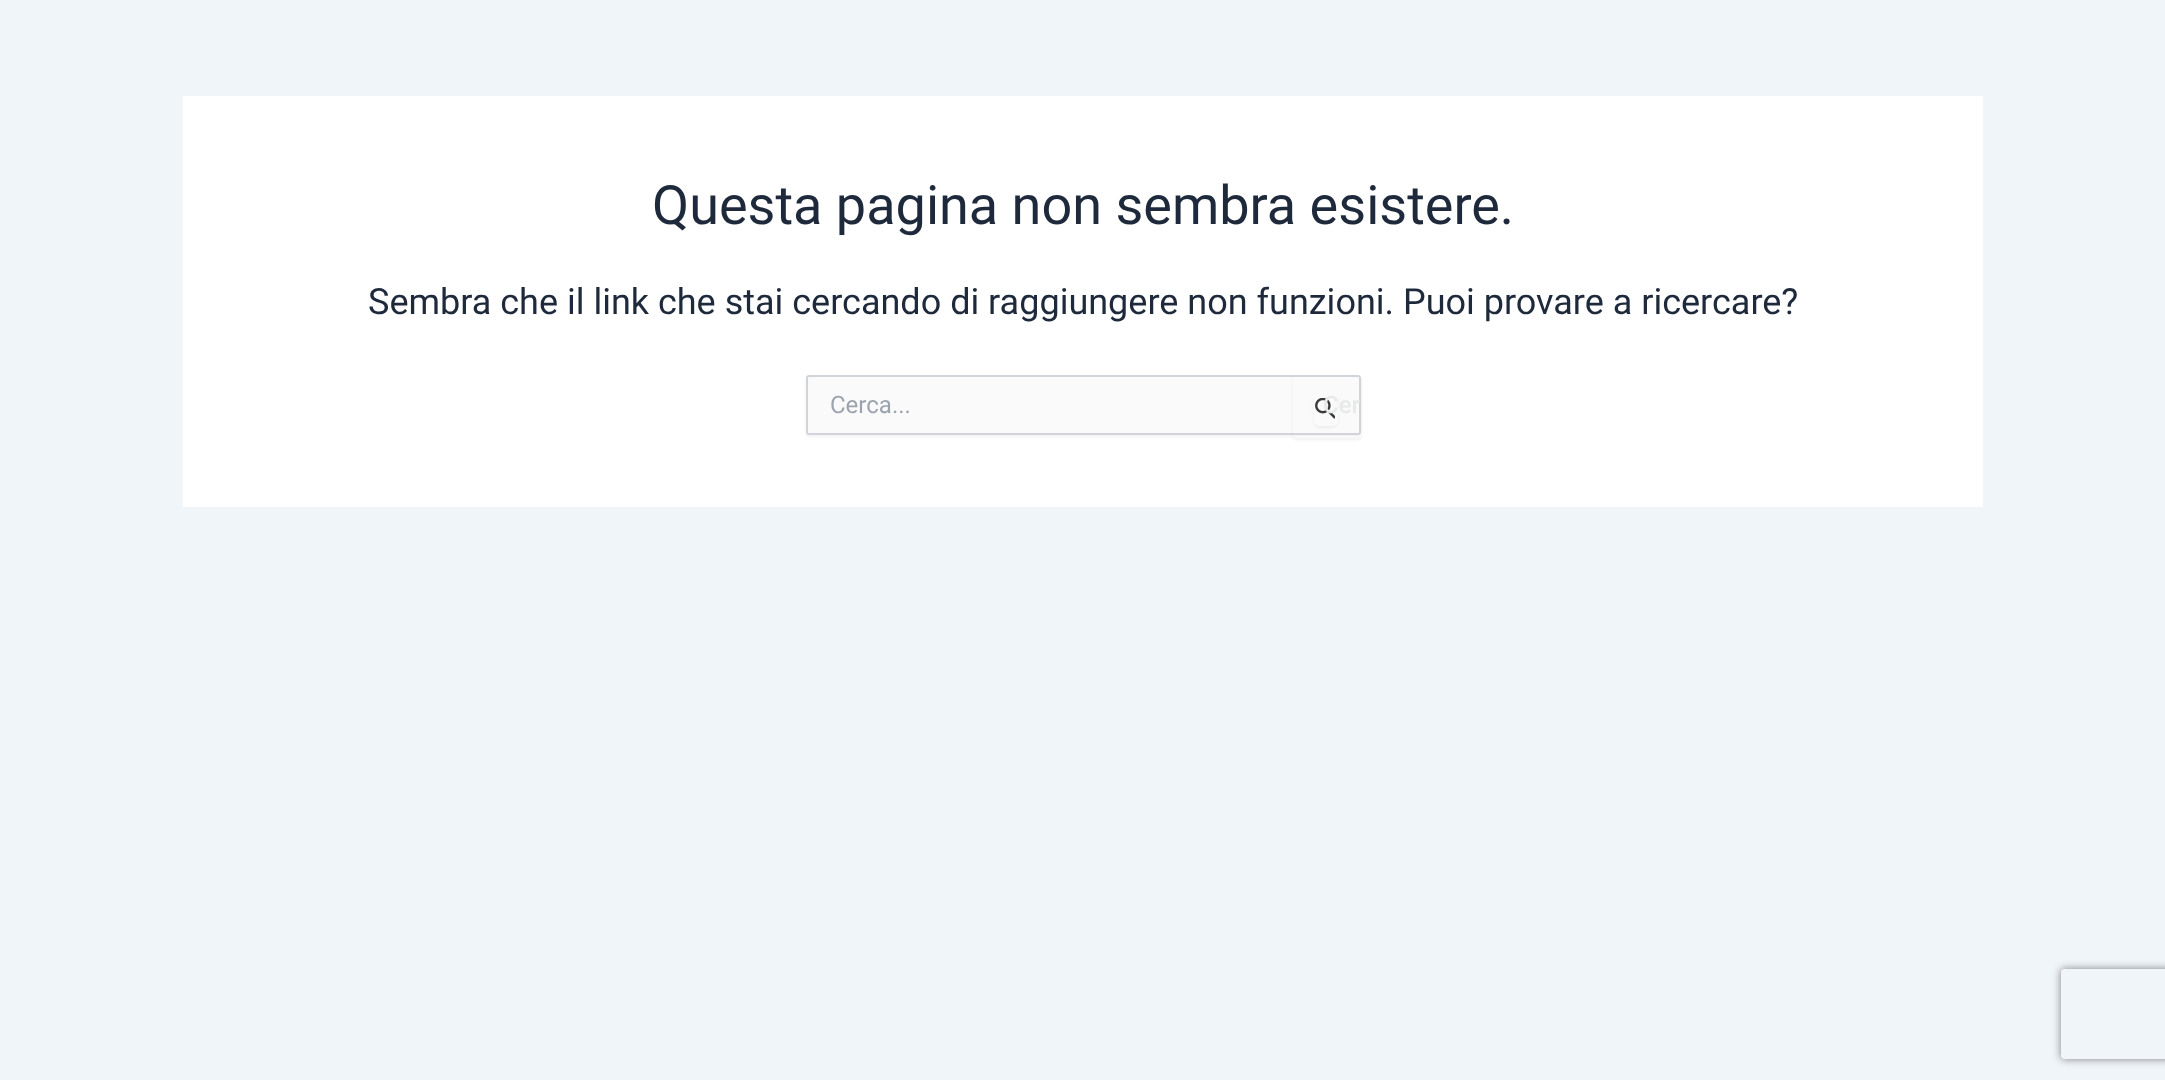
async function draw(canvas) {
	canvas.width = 2165;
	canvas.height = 1080;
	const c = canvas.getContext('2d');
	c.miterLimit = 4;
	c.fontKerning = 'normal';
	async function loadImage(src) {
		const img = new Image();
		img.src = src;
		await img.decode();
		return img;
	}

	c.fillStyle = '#f0f5fa';
	c.fillRect(0, 0, 2165, 1080);
	c.fillStyle = '#fff';
	c.fillRect(183, 96, 1800, 411);
	c.font = '54px Roboto';
	c.fillStyle = '#1e293b';
	c.fillText('Questa pagina non sembra esistere.', 652, 224);
	c.font = '36px Roboto';
	c.fillText('Sembra che il link che stai cercando di raggiungere non funzioni. Puoi provare a ricercare?', 368, 314);
	c.fillStyle = '#0000000d';
	c.filter = 'blur(1.5px)';
	c.beginPath();
	c.roundRect(806, 377, 555, 60, 3);
	c.fill();
	c.filter = 'none';
	c.fillStyle = '#fafafa';
	c.beginPath();
	c.roundRect(807, 376, 553, 58, 2);
	c.fill();
	c.strokeStyle = '#d1d5db';
	c.lineWidth = 2;
	c.stroke();
	c.font = '24px Roboto';
	c.fillStyle = '#9ca3af';
	c.fillText('Cerca...', 830, 413);
	c.save();
	c.beginPath();
	c.moveTo(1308, 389);
	c.lineTo(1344, 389);
	c.lineTo(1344, 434);
	c.lineTo(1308, 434);
	c.closePath();
	c.moveTo(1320, 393);
	c.lineTo(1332, 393);
	c.bezierCurveTo(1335.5, 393, 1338, 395.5, 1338, 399);
	c.lineTo(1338, 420);
	c.bezierCurveTo(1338, 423.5, 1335.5, 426, 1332, 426);
	c.lineTo(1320, 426);
	c.bezierCurveTo(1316.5, 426, 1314, 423.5, 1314, 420);
	c.lineTo(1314, 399);
	c.bezierCurveTo(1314, 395.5, 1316.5, 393, 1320, 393);
	c.closePath();
	c.clip('evenodd');
	c.fillStyle = '#0000000d';
	c.filter = 'blur(1.5px)';
	c.beginPath();
	c.roundRect(1314, 395, 24, 33, 6);
	c.fill();
	c.filter = 'none';
	c.restore();
	c.drawImage(await loadImage('img1.png'), 1315, 398, 20, 21);
	c.save();
	c.beginPath();
	c.moveTo(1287, 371);
	c.lineTo(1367, 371);
	c.lineTo(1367, 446);
	c.lineTo(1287, 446);
	c.closePath();
	c.moveTo(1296, 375);
	c.lineTo(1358, 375);
	c.bezierCurveTo(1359.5, 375, 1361, 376.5, 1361, 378);
	c.lineTo(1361, 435);
	c.bezierCurveTo(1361, 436.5, 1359.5, 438, 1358, 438);
	c.lineTo(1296, 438);
	c.bezierCurveTo(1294.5, 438, 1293, 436.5, 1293, 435);
	c.lineTo(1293, 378);
	c.bezierCurveTo(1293, 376.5, 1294.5, 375, 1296, 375);
	c.closePath();
	c.clip('evenodd');
	c.fillStyle = '#0000000d';
	c.filter = 'blur(1.5px)';
	c.beginPath();
	c.roundRect(1293, 377, 68, 63, 3);
	c.fill();
	c.filter = 'none';
	c.restore();
	c.font = '500 24px Roboto';
	c.fillStyle = '#e8e9e9';
	c.fillText('Cer', 1323, 413);
	c.save();
	c.beginPath();
	c.moveTo(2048, 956);
	c.lineTo(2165, 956);
	c.lineTo(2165, 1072);
	c.lineTo(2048, 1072);
	c.closePath();
	c.moveTo(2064, 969);
	c.lineTo(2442, 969);
	c.bezierCurveTo(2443.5, 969, 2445, 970.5, 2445, 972);
	c.lineTo(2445, 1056);
	c.bezierCurveTo(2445, 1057.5, 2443.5, 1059, 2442, 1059);
	c.lineTo(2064, 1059);
	c.bezierCurveTo(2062.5, 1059, 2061, 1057.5, 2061, 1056);
	c.lineTo(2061, 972);
	c.bezierCurveTo(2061, 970.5, 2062.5, 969, 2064, 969);
	c.closePath();
	c.clip('evenodd');
	c.fillStyle = '#808080';
	c.filter = 'blur(4px)';
	c.beginPath();
	c.roundRect(2061, 969, 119, 90, 3);
	c.fill();
	c.filter = 'none';
	c.restore();
}

draw(document.querySelector('canvas'));
